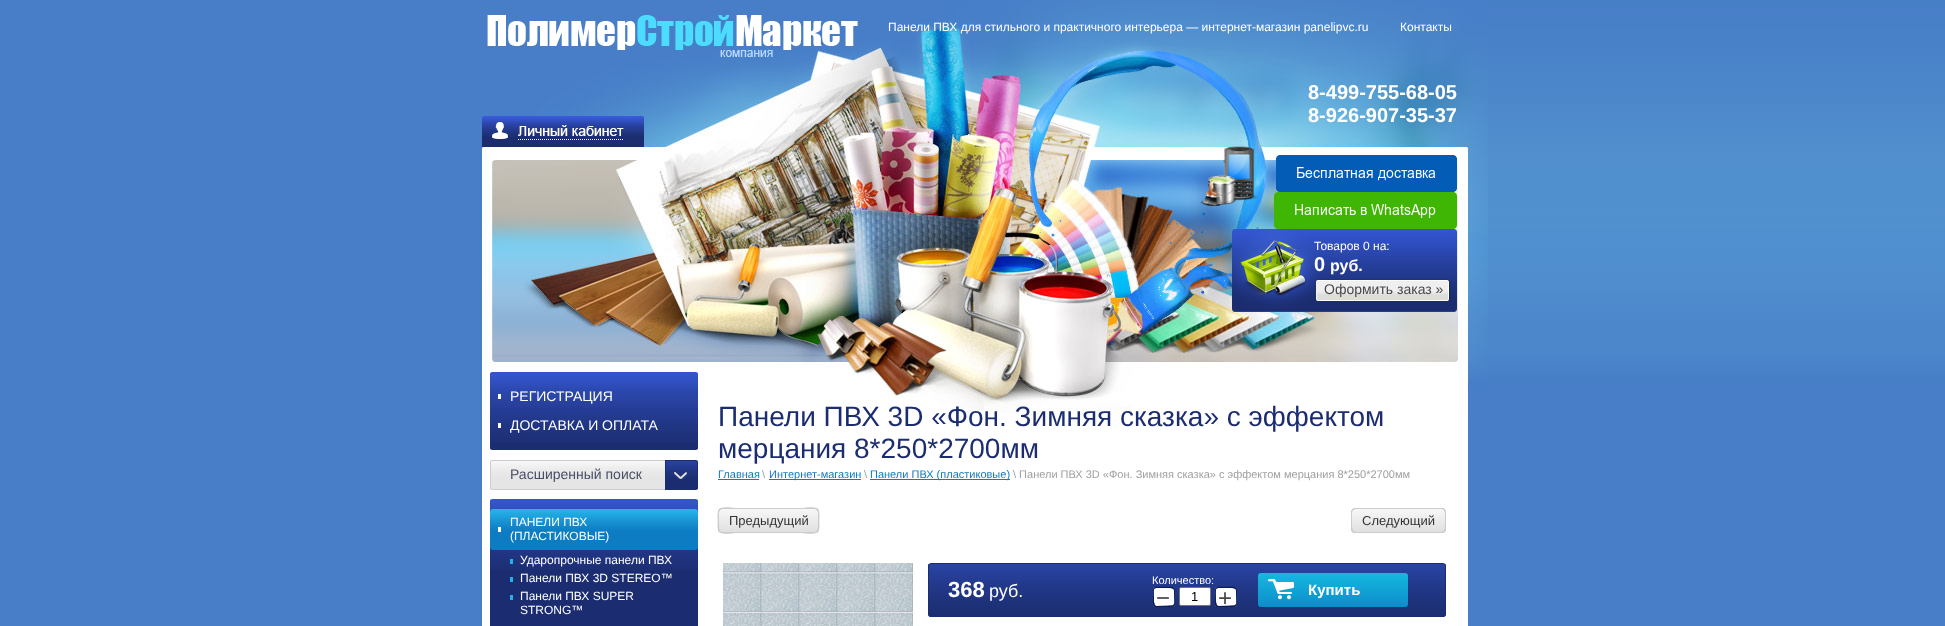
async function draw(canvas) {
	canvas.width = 1945;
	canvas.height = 626;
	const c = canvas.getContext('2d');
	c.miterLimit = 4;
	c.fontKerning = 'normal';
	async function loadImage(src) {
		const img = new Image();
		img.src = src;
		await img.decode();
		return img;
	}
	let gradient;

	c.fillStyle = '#477ec7';
	c.fillRect(0, 0, 1945, 626);
	c.fillStyle = '#fff';
	c.fillRect(482, 414, 986, 212);
	c.drawImage(await loadImage('img1.png'), 480, 0, 1008, 414);
	c.drawImage(await loadImage('img2.png'), 487, 15, 371, 42);
	c.font = '12px Liberation Sans';
	c.fillText('Панели ПВХ для стильного и практичного интерьера — интернет-магазин panelipvc.ru', 888, 31);
	c.fillText('Контакты', 1400, 31);
	c.drawImage(await loadImage('img3.png'), 1200, 146, 58, 60);
	c.font = 'bold 20px Liberation Sans';
	c.fillText('8-499-755-68-05', 1308, 99);
	c.fillText('8-926-907-35-37', 1308, 122);
	c.drawImage(await loadImage('img4.png'), 1276, 155, 181, 37);
	c.drawImage(await loadImage('img5.png'), 1274, 192, 183, 37);
	c.drawImage(await loadImage('img6.png'), 482, 116, 162, 31);
	c.drawImage(await loadImage('img7.png'), 1232, 229, 225, 83);
	c.font = '12px Liberation Sans';
	c.fillText('Товаров 0 на:', 1314, 250);
	c.font = 'bold 20px Liberation Sans';
	c.fillText('0', 1314, 271);
	c.font = 'bold 16px Liberation Sans';
	c.fillText('руб.', 1330, 271);
	c.drawImage(await loadImage('img8.png'), 1314, 279, 137, 22);
	c.font = '14px Liberation Sans';
	c.fillStyle = '#484848';
	c.fillText('Оформить заказ »', 1324, 294);
	c.fillStyle = '#1b2d70';
	c.fillRect(490, 443, 208, 4);
	c.drawImage(await loadImage('img9.png'), 490, 372, 208, 71);
	c.drawImage(await loadImage('img10.png'), 490, 447, 208, 3);
	c.fillStyle = '#fff';
	c.fillRect(498, 394, 3, 5);
	c.fillText('РЕГИСТРАЦИЯ', 510, 401);
	c.fillRect(498, 423, 3, 5);
	c.fillText('ДОСТАВКА И ОПЛАТА', 510, 430);
	c.drawImage(await loadImage('img11.png'), 490, 460, 208, 30);
	c.fillStyle = '#494f67';
	c.fillText('Расширенный поиск', 510, 479);
	c.drawImage(await loadImage('img12.png'), 674, 472, 13, 7);
	c.fillStyle = '#1b2d70';
	c.fillRect(490, 570, 208, 56);
	c.drawImage(await loadImage('img9.png'), 490, 499, 208, 71);
	c.drawImage(await loadImage('img13.png'), 490, 509, 208, 41);
	c.fillStyle = '#fff';
	c.fillRect(498, 527, 3, 5);
	c.font = '12px Liberation Sans';
	c.fillText('ПАНЕЛИ ПВХ', 510, 526);
	c.fillText('(ПЛАСТИКОВЫЕ)', 510, 540);
	c.fillStyle = '#25b1e7';
	c.fillRect(510, 559, 3, 5);
	c.fillStyle = '#fff';
	c.fillText('Ударопрочные панели ПВХ', 520, 564);
	c.fillStyle = '#25b1e7';
	c.fillRect(510, 577, 3, 5);
	c.fillStyle = '#fff';
	c.fillText('Панели ПВХ 3D STEREO™', 520, 582);
	c.fillStyle = '#25b1e7';
	c.fillRect(510, 595, 3, 5);
	c.fillStyle = '#fff';
	c.fillText('Панели ПВХ SUPER', 520, 600);
	c.fillText('STRONG™', 520, 614);
	c.font = '28px Liberation Sans';
	c.fillStyle = '#1b2d70';
	c.fillText('Панели ПВХ 3D «Фон. Зимняя сказка» с эффектом', 718, 426);
	c.fillText('мерцания 8*250*2700мм', 718, 458);
	c.font = '11px Liberation Sans';
	c.fillStyle = '#0d7cc2';
	c.fillText('Главная', 718, 478);
	c.fillRect(718, 479, 41, 1);
	c.fillStyle = '#a0a0a0';
	c.fillText('\\', 762, 478);
	c.fillStyle = '#0d7cc2';
	c.fillRect(769, 479, 92, 1);
	c.fillText('Интернет-магазин', 769, 478);
	c.fillStyle = '#a0a0a0';
	c.fillText('\\', 864, 478);
	c.fillStyle = '#0d7cc2';
	c.fillRect(870, 479, 140, 1);
	c.fillText('Панели ПВХ (пластиковые)', 870, 478);
	c.fillStyle = '#a0a0a0';
	c.fillText('\\ Панели ПВХ 3D «Фон. Зимняя сказка» с эффектом мерцания 8*250*2700мм', 1013, 478);
	gradient = c.createLinearGradient(769, 508, 769, 533);
	gradient.addColorStop(0, '#f8f8f8');
	gradient.addColorStop(1, '#dfdfdf');
	c.fillStyle = gradient;
	c.beginPath();
	c.roundRect(718, 508, 101, 25, 4);
	c.fill();
	c.fillStyle = '#ccc';
	c.beginPath();
	c.moveTo(720, 509);
	c.bezierCurveTo(716, 511, 718, 520, 718, 523);
	c.lineTo(718, 530);
	c.bezierCurveTo(719, 536, 732, 533, 738, 533);
	c.lineTo(817, 533);
	c.lineTo(818, 531);
	c.lineTo(817, 532);
	c.lineTo(738, 532);
	c.bezierCurveTo(719, 532, 719, 536, 719, 520);
	c.bezierCurveTo(719, 517, 718, 511, 720, 509);
	c.closePath();
	c.fill();
	c.beginPath();
	c.moveTo(721, 509);
	c.lineTo(814, 509);
	c.bezierCurveTo(816, 509, 818, 511, 818, 513);
	c.lineTo(818, 530);
	c.lineTo(817, 532);
	c.bezierCurveTo(821, 530, 819, 521, 819, 518);
	c.lineTo(819, 511);
	c.bezierCurveTo(818, 505, 805, 508, 800, 508);
	c.lineTo(720, 508);
	c.lineTo(719, 510);
	c.closePath();
	c.fill();
	c.beginPath();
	c.moveTo(719, 531);
	c.lineTo(720, 533);
	c.lineTo(800, 533);
	c.bezierCurveTo(805, 533, 818, 536, 819, 530);
	c.lineTo(819, 523);
	c.bezierCurveTo(819, 520, 821, 511, 817, 509);
	c.bezierCurveTo(819, 511, 818, 517, 818, 520);
	c.bezierCurveTo(818, 536, 818, 532, 798, 532);
	c.lineTo(720, 532);
	c.closePath();
	c.fill();
	c.beginPath();
	c.moveTo(723, 509);
	c.lineTo(816, 509);
	c.lineTo(818, 510);
	c.lineTo(817, 508);
	c.lineTo(738, 508);
	c.bezierCurveTo(732, 508, 719, 505, 718, 511);
	c.lineTo(718, 518);
	c.bezierCurveTo(718, 521, 716, 530, 720, 532);
	c.bezierCurveTo(718, 530, 719, 524, 719, 522);
	c.bezierCurveTo(719, 518, 717, 509, 723, 509);
	c.closePath();
	c.fill();
	c.font = '13px Liberation Sans';
	c.fillStyle = '#333';
	c.fillText('Предыдущий', 729, 525);
	gradient = c.createLinearGradient(1399, 508, 1399, 533);
	gradient.addColorStop(0, '#f8f8f8');
	gradient.addColorStop(1, '#dfdfdf');
	c.fillStyle = gradient;
	c.beginPath();
	c.roundRect(1351, 508, 95, 25, 4);
	c.fill();
	c.fillStyle = '#ccc';
	c.beginPath();
	c.moveTo(1353, 509);
	c.bezierCurveTo(1352, 509, 1351, 511, 1351, 512);
	c.lineTo(1351, 529);
	c.bezierCurveTo(1351, 531, 1353, 533, 1355, 533);
	c.lineTo(1442, 533);
	c.bezierCurveTo(1443, 533, 1445, 532, 1445, 531);
	c.lineTo(1443, 532);
	c.lineTo(1370, 532);
	c.bezierCurveTo(1352, 532, 1352, 535, 1352, 520);
	c.bezierCurveTo(1352, 517, 1351, 511, 1353, 509);
	c.closePath();
	c.fill();
	c.beginPath();
	c.moveTo(1354, 509);
	c.lineTo(1441, 509);
	c.bezierCurveTo(1443, 509, 1445, 511, 1445, 513);
	c.lineTo(1445, 530);
	c.lineTo(1444, 532);
	c.bezierCurveTo(1445, 532, 1446, 530, 1446, 529);
	c.lineTo(1446, 512);
	c.bezierCurveTo(1446, 510, 1444, 508, 1442, 508);
	c.lineTo(1355, 508);
	c.bezierCurveTo(1354, 508, 1352, 509, 1352, 510);
	c.closePath();
	c.fill();
	c.beginPath();
	c.moveTo(1352, 531);
	c.bezierCurveTo(1352, 532, 1354, 533, 1355, 533);
	c.lineTo(1442, 533);
	c.bezierCurveTo(1444, 533, 1446, 531, 1446, 529);
	c.lineTo(1446, 512);
	c.bezierCurveTo(1446, 511, 1445, 509, 1444, 509);
	c.bezierCurveTo(1446, 511, 1445, 517, 1445, 520);
	c.bezierCurveTo(1445, 535, 1445, 532, 1426, 532);
	c.lineTo(1354, 532);
	c.closePath();
	c.fill();
	c.beginPath();
	c.moveTo(1356, 509);
	c.lineTo(1443, 509);
	c.lineTo(1445, 510);
	c.bezierCurveTo(1445, 509, 1443, 508, 1442, 508);
	c.lineTo(1355, 508);
	c.bezierCurveTo(1353, 508, 1351, 510, 1351, 512);
	c.lineTo(1351, 529);
	c.bezierCurveTo(1351, 530, 1352, 532, 1353, 532);
	c.bezierCurveTo(1351, 530, 1352, 524, 1352, 522);
	c.bezierCurveTo(1352, 518, 1350, 509, 1356, 509);
	c.closePath();
	c.fill();
	c.fillStyle = '#333';
	c.fillText('Следующий', 1362, 525);
	c.drawImage(await loadImage('img14.png'), 723, 563, 190, 63);
	c.drawImage(await loadImage('img15.png'), 928, 564, 518, 53);
	c.beginPath();
	c.roundRect(928.5, 563.5, 517, 53, 2.5);
	c.strokeStyle = '#1b2d70';
	c.stroke();
	c.font = 'bold 22px Liberation Sans';
	c.fillStyle = '#fff';
	c.fillText('368', 948, 597);
	c.font = '18px Liberation Sans';
	c.fillText('руб.', 989, 597);
	c.font = '11px Liberation Sans';
	c.fillText('Количество:', 1152, 584);
	c.beginPath();
	c.roundRect(1153, 587, 22, 20, 3);
	c.fill();
	c.fillStyle = '#0b1c58';
	c.beginPath();
	c.moveTo(1154, 587.5);
	c.bezierCurveTo(1153.5, 588, 1153, 589, 1153, 590);
	c.lineTo(1153, 604);
	c.bezierCurveTo(1153, 605.5, 1154.5, 607, 1156, 607);
	c.lineTo(1172, 607);
	c.bezierCurveTo(1173, 607, 1174.5, 606.5, 1174.5, 605);
	c.bezierCurveTo(1173, 606, 1160, 606.5, 1157.5, 606);
	c.bezierCurveTo(1156.5, 606, 1156, 606, 1155, 605);
	c.bezierCurveTo(1154.5, 604.5, 1154.5, 603, 1154, 602);
	c.bezierCurveTo(1154, 600.5, 1153.5, 589.5, 1154, 587.5);
	c.closePath();
	c.fill();
	c.beginPath();
	c.moveTo(1155, 588);
	c.bezierCurveTo(1158.5, 588, 1170, 587.5, 1172.5, 588.5);
	c.lineTo(1174, 590);
	c.lineTo(1174.5, 604.5);
	c.lineTo(1174, 606.5);
	c.bezierCurveTo(1176, 605, 1175, 601.5, 1175, 599.5);
	c.bezierCurveTo(1175, 584.5, 1176.5, 587, 1161.5, 587);
	c.bezierCurveTo(1159, 587, 1155, 586, 1153.5, 588.5);
	c.closePath();
	c.fill();
	c.beginPath();
	c.moveTo(1153.5, 605);
	c.bezierCurveTo(1153.5, 606.5, 1155, 607, 1156, 607);
	c.lineTo(1172, 607);
	c.bezierCurveTo(1173.5, 607, 1175, 605.5, 1175, 604);
	c.lineTo(1175, 590);
	c.bezierCurveTo(1175, 589, 1174.5, 588, 1173.5, 587.5);
	c.lineTo(1174, 589);
	c.lineTo(1174.5, 602.5);
	c.bezierCurveTo(1174.5, 603.5, 1174, 604, 1173.5, 604.5);
	c.bezierCurveTo(1173, 605.5, 1172, 605.5, 1171, 605.5);
	c.lineTo(1155.5, 606);
	c.bezierCurveTo(1155, 606, 1154, 606, 1153.5, 605);
	c.closePath();
	c.fill();
	c.beginPath();
	c.moveTo(1157, 588);
	c.bezierCurveTo(1160, 588, 1172, 587, 1174.5, 589);
	c.bezierCurveTo(1174.5, 587.5, 1173, 587, 1172, 587);
	c.lineTo(1156, 587);
	c.bezierCurveTo(1154.5, 587, 1153, 588.5, 1153, 590);
	c.lineTo(1153, 604);
	c.bezierCurveTo(1153, 605.5, 1154, 606.5, 1155, 607);
	c.bezierCurveTo(1154, 605.5, 1153, 591.5, 1154, 589.5);
	c.bezierCurveTo(1154.5, 588.5, 1156, 588, 1157, 588);
	c.closePath();
	c.fill();
	c.font = '24px Liberation Sans';
	c.fillStyle = '#484848';
	c.fillText('−', 1156, 606);
	c.fillStyle = '#fff';
	c.beginPath();
	c.roundRect(1179.5, 587.5, 31, 18, 1.5);
	c.fill();
	c.strokeStyle = '#767676';
	c.stroke();
	c.font = '13px Liberation Sans';
	c.fillStyle = '#000';
	c.fillText('1', 1191, 601);
	c.fillStyle = '#fff';
	c.beginPath();
	c.roundRect(1215, 587, 22, 20, 3);
	c.fill();
	c.fillStyle = '#0b1c58';
	c.beginPath();
	c.moveTo(1216, 587.5);
	c.bezierCurveTo(1215.5, 588, 1215, 589, 1215, 590);
	c.lineTo(1215, 604);
	c.bezierCurveTo(1215, 605.5, 1216.5, 607, 1218, 607);
	c.lineTo(1234, 607);
	c.bezierCurveTo(1235, 607, 1236.5, 606.5, 1236.5, 605);
	c.bezierCurveTo(1235, 606, 1222, 606.5, 1219.5, 606);
	c.bezierCurveTo(1218.5, 606, 1218, 606, 1217, 605);
	c.bezierCurveTo(1216.5, 604.5, 1216.5, 603, 1216, 602);
	c.bezierCurveTo(1216, 600.5, 1215.5, 589.5, 1216, 587.5);
	c.closePath();
	c.fill();
	c.beginPath();
	c.moveTo(1217, 588);
	c.bezierCurveTo(1220.5, 588, 1232, 587.5, 1234.5, 588.5);
	c.lineTo(1236, 590);
	c.lineTo(1236.5, 604.5);
	c.lineTo(1236, 606.5);
	c.bezierCurveTo(1238, 605, 1237, 601.5, 1237, 599.5);
	c.bezierCurveTo(1237, 584.5, 1238.5, 587, 1223.5, 587);
	c.bezierCurveTo(1221, 587, 1217, 586, 1215.5, 588.5);
	c.closePath();
	c.fill();
	c.beginPath();
	c.moveTo(1215.5, 605);
	c.bezierCurveTo(1215.5, 606.5, 1217, 607, 1218, 607);
	c.lineTo(1234, 607);
	c.bezierCurveTo(1235.5, 607, 1237, 605.5, 1237, 604);
	c.lineTo(1237, 590);
	c.bezierCurveTo(1237, 589, 1236.5, 588, 1235.5, 587.5);
	c.lineTo(1236, 589);
	c.lineTo(1236.5, 602.5);
	c.bezierCurveTo(1236.5, 603.5, 1236, 604, 1235.5, 604.5);
	c.bezierCurveTo(1235, 605.5, 1234, 605.5, 1233, 605.5);
	c.lineTo(1217.5, 606);
	c.bezierCurveTo(1217, 606, 1216, 606, 1215.5, 605);
	c.closePath();
	c.fill();
	c.beginPath();
	c.moveTo(1219, 588);
	c.bezierCurveTo(1222, 588, 1234, 587, 1236.5, 589);
	c.bezierCurveTo(1236.5, 587.5, 1235, 587, 1234, 587);
	c.lineTo(1218, 587);
	c.bezierCurveTo(1216.5, 587, 1215, 588.5, 1215, 590);
	c.lineTo(1215, 604);
	c.bezierCurveTo(1215, 605.5, 1216, 606.5, 1217, 607);
	c.bezierCurveTo(1216, 605.5, 1215, 591.5, 1216, 589.5);
	c.bezierCurveTo(1216.5, 588.5, 1218, 588, 1219, 588);
	c.closePath();
	c.fill();
	c.font = '24px Liberation Sans';
	c.fillStyle = '#484848';
	c.fillText('+', 1218, 606);
	gradient = c.createLinearGradient(1333, 573, 1333, 607);
	gradient.addColorStop(0, '#14b9df');
	gradient.addColorStop(1, '#0e8cca');
	c.fillStyle = gradient;
	c.beginPath();
	c.roundRect(1258, 573, 150, 34, 3);
	c.fill();
	c.drawImage(await loadImage('img16.png'), 1268, 579, 26, 21);
	c.font = 'bold 15px Liberation Sans';
	c.fillStyle = '#fff';
	c.fillText('Купить', 1308, 595);
	c.drawImage(await loadImage('img17.png'), 1488, 0, 457, 414);
}

draw(document.querySelector('canvas'));
